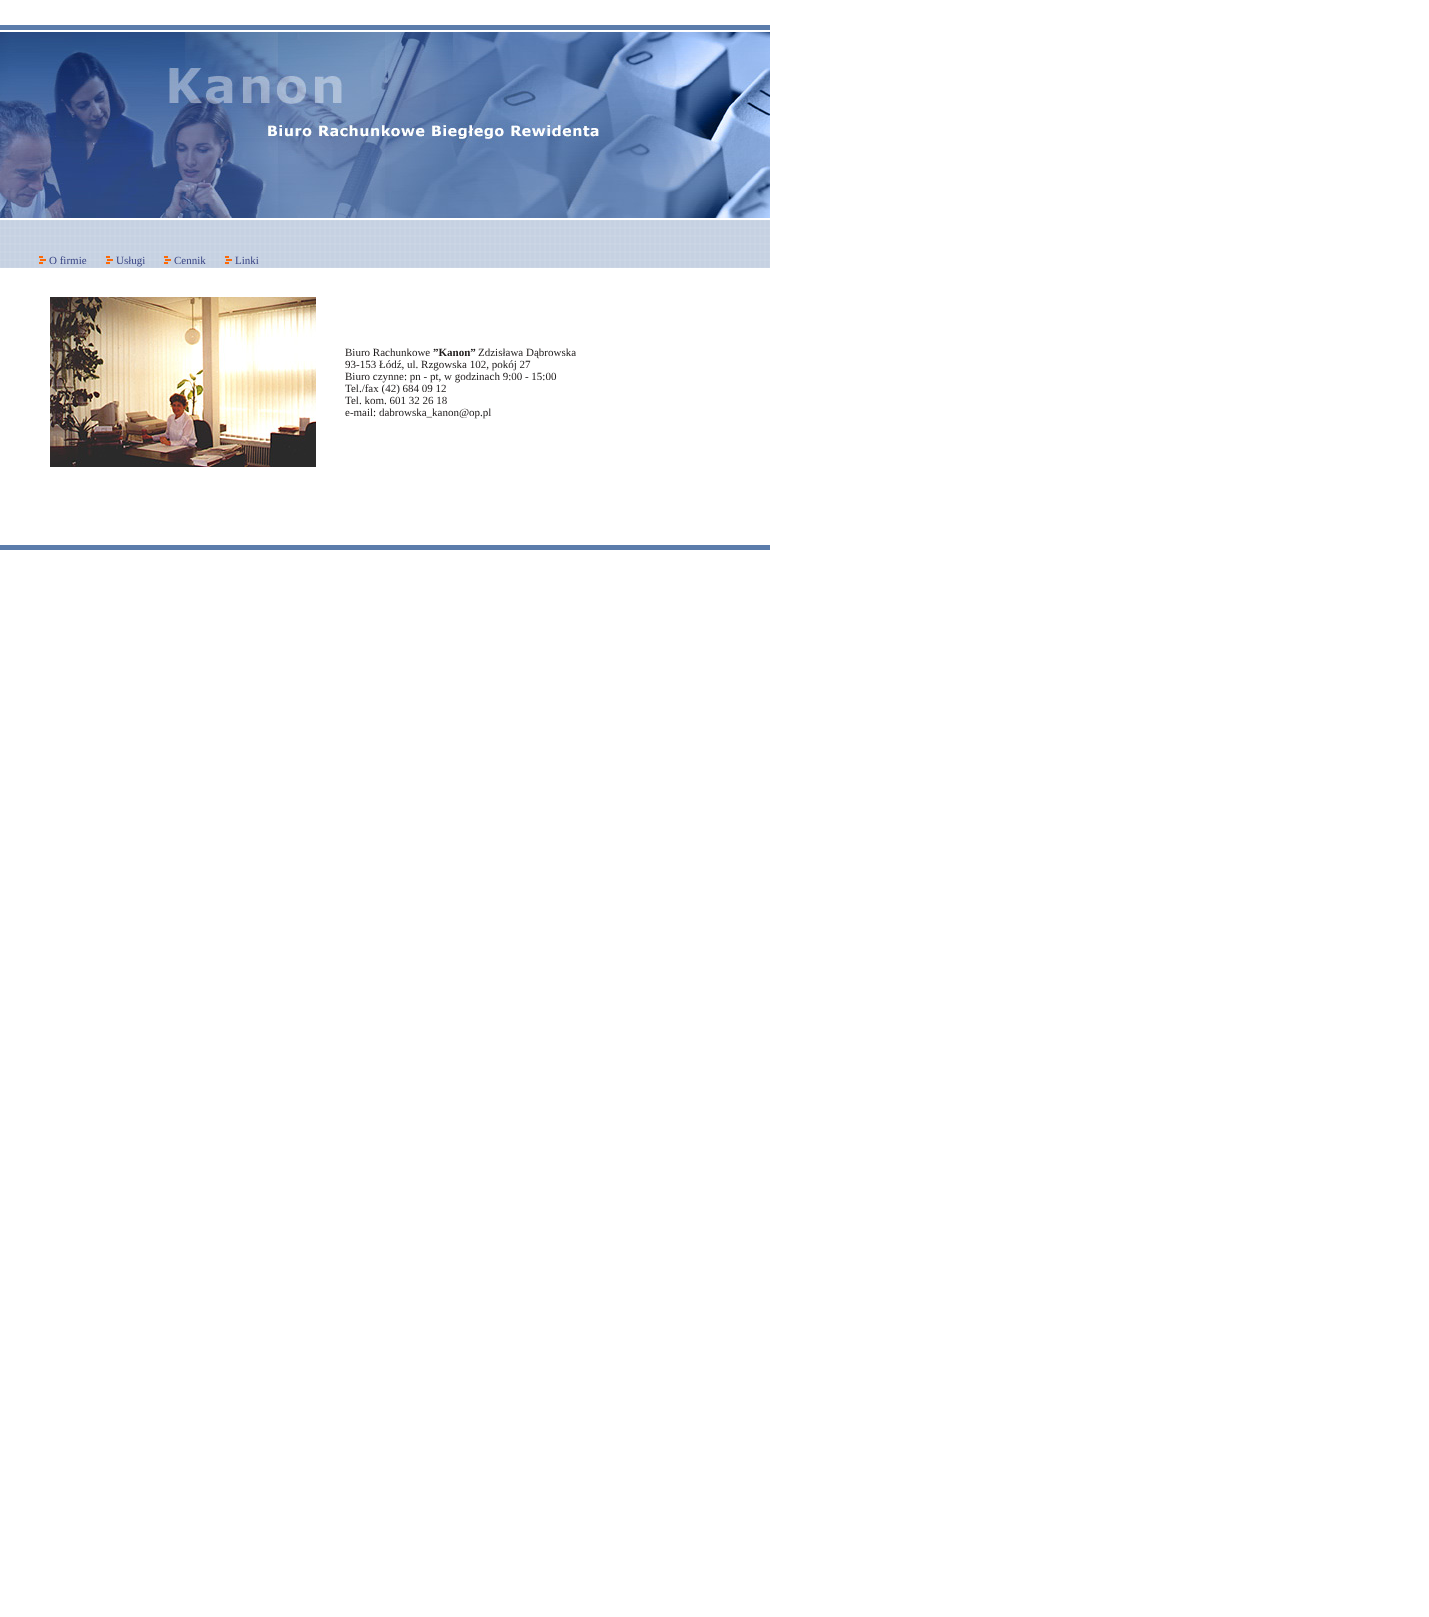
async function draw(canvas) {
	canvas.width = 1429;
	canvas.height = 1617;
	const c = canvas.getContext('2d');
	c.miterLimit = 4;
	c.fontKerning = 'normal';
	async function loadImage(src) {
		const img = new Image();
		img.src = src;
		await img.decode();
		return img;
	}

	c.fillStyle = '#fff';
	c.fillRect(0, 0, 1429, 1617);
	c.fillStyle = '#5b7cab';
	c.fillRect(0, 25, 770, 5);
	c.drawImage(await loadImage('img1.png'), 0, 32, 770, 6);
	c.drawImage(await loadImage('img2.png'), 0, 38, 770, 7);
	c.drawImage(await loadImage('img3.png'), 0, 45, 770, 7);
	c.drawImage(await loadImage('img4.png'), 0, 52, 770, 7);
	c.drawImage(await loadImage('img5.png'), 0, 59, 770, 7);
	c.drawImage(await loadImage('img6.png'), 0, 66, 770, 7);
	c.drawImage(await loadImage('img7.png'), 0, 73, 770, 7);
	c.drawImage(await loadImage('img8.png'), 0, 80, 770, 7);
	c.drawImage(await loadImage('img9.png'), 0, 87, 770, 7);
	c.drawImage(await loadImage('img10.png'), 0, 94, 770, 7);
	c.drawImage(await loadImage('img11.png'), 0, 101, 770, 7);
	c.drawImage(await loadImage('img12.png'), 0, 108, 770, 7);
	c.drawImage(await loadImage('img13.png'), 0, 115, 770, 7);
	c.drawImage(await loadImage('img14.png'), 0, 122, 770, 7);
	c.drawImage(await loadImage('img15.png'), 0, 129, 770, 7);
	c.drawImage(await loadImage('img16.png'), 0, 136, 770, 7);
	c.drawImage(await loadImage('img17.png'), 0, 143, 770, 7);
	c.drawImage(await loadImage('img18.png'), 0, 150, 770, 7);
	c.drawImage(await loadImage('img19.png'), 0, 157, 770, 7);
	c.drawImage(await loadImage('img20.png'), 0, 164, 770, 7);
	c.drawImage(await loadImage('img21.png'), 0, 171, 770, 7);
	c.drawImage(await loadImage('img22.png'), 0, 178, 770, 7);
	c.drawImage(await loadImage('img23.png'), 0, 185, 770, 7);
	c.drawImage(await loadImage('img24.png'), 0, 192, 770, 7);
	c.drawImage(await loadImage('img25.png'), 0, 199, 770, 7);
	c.drawImage(await loadImage('img26.png'), 0, 206, 770, 7);
	c.drawImage(await loadImage('img27.png'), 0, 213, 770, 5);
	c.drawImage(await loadImage('img28.png'), 0, 220, 770, 48);
	c.drawImage(await loadImage('img29.png'), 39, 256, 7, 8);
	c.font = '11px Liberation Serif';
	c.fillStyle = '#3a4585';
	c.fillText('O firmie', 49, 264);
	c.drawImage(await loadImage('img30.png'), 104, 256, 12, 8);
	c.fillText('Usługi', 116, 264);
	c.drawImage(await loadImage('img29.png'), 164, 256, 7, 8);
	c.fillText('Cennik', 174, 264);
	c.drawImage(await loadImage('img31.png'), 224, 256, 11, 8);
	c.fillText('Linki', 235, 264);
	c.drawImage(await loadImage('img32.png'), 50, 297, 266, 170);
	c.fillStyle = '#1c1919';
	c.fillText('Biuro Rachunkowe', 345, 356);
	c.font = 'bold 11px Liberation Serif';
	c.fillText('”Kanon”', 433, 356);
	c.font = '11px Liberation Serif';
	for (const [text, x, y] of [
		['Zdzisława Dąbrowska', 478, 356],
		['93-153 Łódź, ul. Rzgowska 102, pokój 27', 345, 368],
		['Biuro czynne: pn - pt, w godzinach 9:00 - 15:00', 345, 380],
		['Tel./fax (42) 684 09 12', 345, 392],
		['Tel. kom. 601 32 26 18', 345, 404],
		['e-mail: dabrowska_kanon@op.pl', 345, 416],
	]) {
		c.fillText(text, x, y);
	}
	c.fillStyle = '#5b7cab';
	c.fillRect(0, 545, 770, 5);
}

draw(document.querySelector('canvas'));
